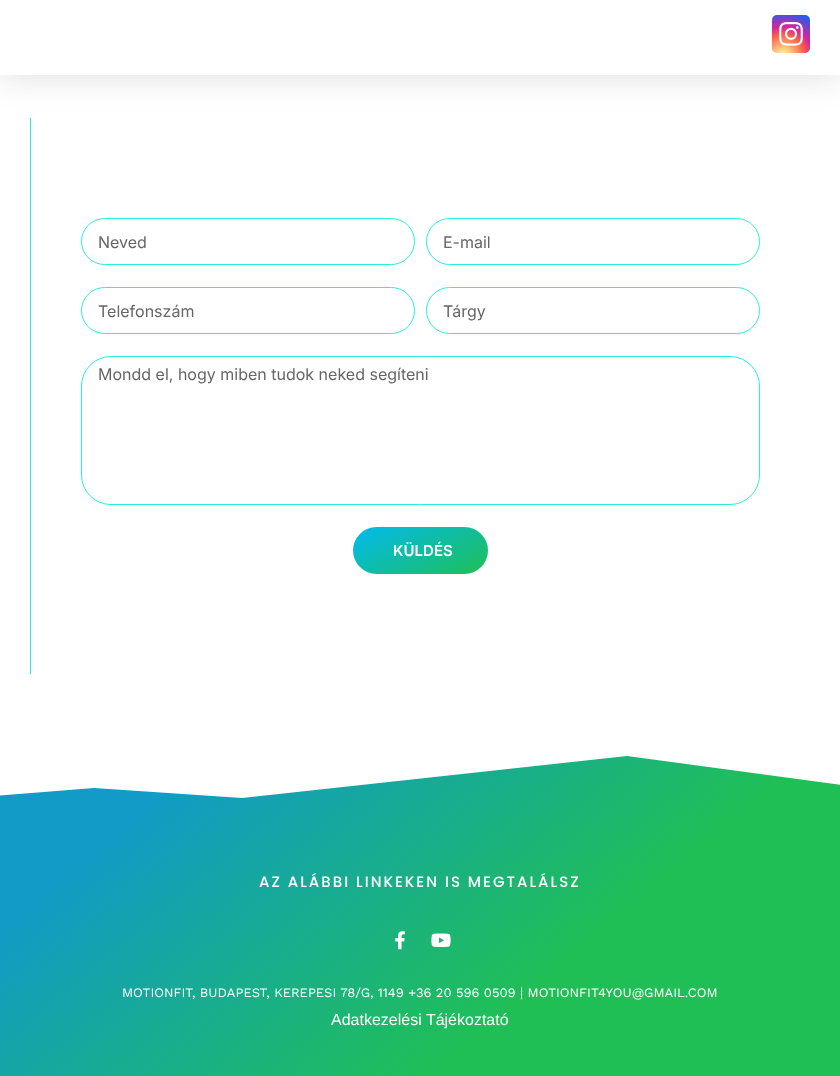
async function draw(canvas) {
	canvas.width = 840;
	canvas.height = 1076;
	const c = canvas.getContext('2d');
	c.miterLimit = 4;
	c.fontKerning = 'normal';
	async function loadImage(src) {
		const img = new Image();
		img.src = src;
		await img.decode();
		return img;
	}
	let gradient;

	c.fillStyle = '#fff';
	c.fillRect(0, 0, 840, 1076);
	c.fillStyle = '#27f1d7';
	c.fillRect(30, 118, 1, 556);
	c.fillStyle = '#48484830';
	c.filter = 'blur(17.5px)';
	c.beginPath();
	c.rect(0, 1, 840, 75);
	c.fill();
	c.filter = 'none';
	c.fillStyle = '#fff';
	c.fillRect(0, 0, 840, 75);
	gradient = c.createRadialGradient(783, 56, 0, 783, 56, 49);
	gradient.addColorStop(0, '#fdf497');
	gradient.addColorStop(0.05, '#fdf497');
	gradient.addColorStop(0.45, '#fd5949');
	gradient.addColorStop(0.6, '#d6249f');
	gradient.addColorStop(0.9, '#285aeb');
	c.fillStyle = gradient;
	c.beginPath();
	c.roundRect(772, 15, 38, 38, 5);
	c.fill();
	c.drawImage(await loadImage('img1.png'), 779, 22, 24, 24);
	c.beginPath();
	c.roundRect(81.5, 218.5, 333, 46, 23);
	c.strokeStyle = '#27f1d7';
	c.stroke();
	c.font = '16px Inter';
	c.fillStyle = '#666';
	c.fillText('Neved', 98, 248);
	c.beginPath();
	c.roundRect(426.5, 218.5, 333, 46, 23);
	c.stroke();
	c.fillText('E-mail', 443, 248);
	c.beginPath();
	c.roundRect(81.5, 287.5, 333, 46, 23);
	c.stroke();
	c.fillText('Telefonszám', 98, 317);
	c.beginPath();
	c.roundRect(426.5, 287.5, 333, 46, 23);
	c.stroke();
	c.fillText('Tárgy', 443, 317);
	c.beginPath();
	c.roundRect(81.5, 356.5, 678, 148, 29.5);
	c.stroke();
	c.fillText('Mondd el, hogy miben tudok neked segíteni', 98, 380);
	gradient = c.createLinearGradient(396, 504, 445, 597);
	gradient.addColorStop(0, '#01baef');
	gradient.addColorStop(1, '#20bf55');
	c.fillStyle = gradient;
	c.beginPath();
	c.roundRect(353, 527, 135, 47, 23.5);
	c.fill();
	c.font = '600 15px Inter';
	c.fillStyle = '#fff';
	c.fillText('KÜLDÉS', 393, 556);
	gradient = c.createLinearGradient(673, 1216, 167, 614);
	gradient.addColorStop(0.33, '#20bf55');
	gradient.addColorStop(0.83, '#119bc6');
	c.fillStyle = gradient;
	c.fillRect(0, 756, 840, 320);
	c.save();
	c.beginPath();
	c.rect(0, 753, 840, 60);
	c.clip();
	c.fillStyle = '#fff';
	c.beginPath();
	c.moveTo(94, 788);
	c.lineTo(242, 798);
	c.lineTo(627, 756);
	c.lineTo(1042, 812);
	c.lineTo(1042, 752);
	c.lineTo(-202, 752);
	c.lineTo(-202, 812);
	c.fill();
	c.restore();
	c.letterSpacing = '2px';
	c.font = '500 15px Poppins';
	c.fillStyle = '#fff';
	c.fillText('AZ ALÁBBI LINKEKEN IS MEGTALÁLSZ', 259, 887);
	c.drawImage(await loadImage('img2.png'), 395, 931, 10, 19);
	c.drawImage(await loadImage('img3.png'), 431, 933, 20, 14);
	c.letterSpacing = '0px';
	c.font = '13px Work Sans';
	c.fillText('MOTIONFIT, BUDAPEST, KEREPESI 78/G, 1149 +36 20 596 0509 | MOTIONFIT4YOU@GMAIL.COM', 122, 997);
	c.font = '16px Liberation Sans';
	c.fillText('Adatkezelési Tájékoztató', 331, 1025);
}

draw(document.querySelector('canvas'));
